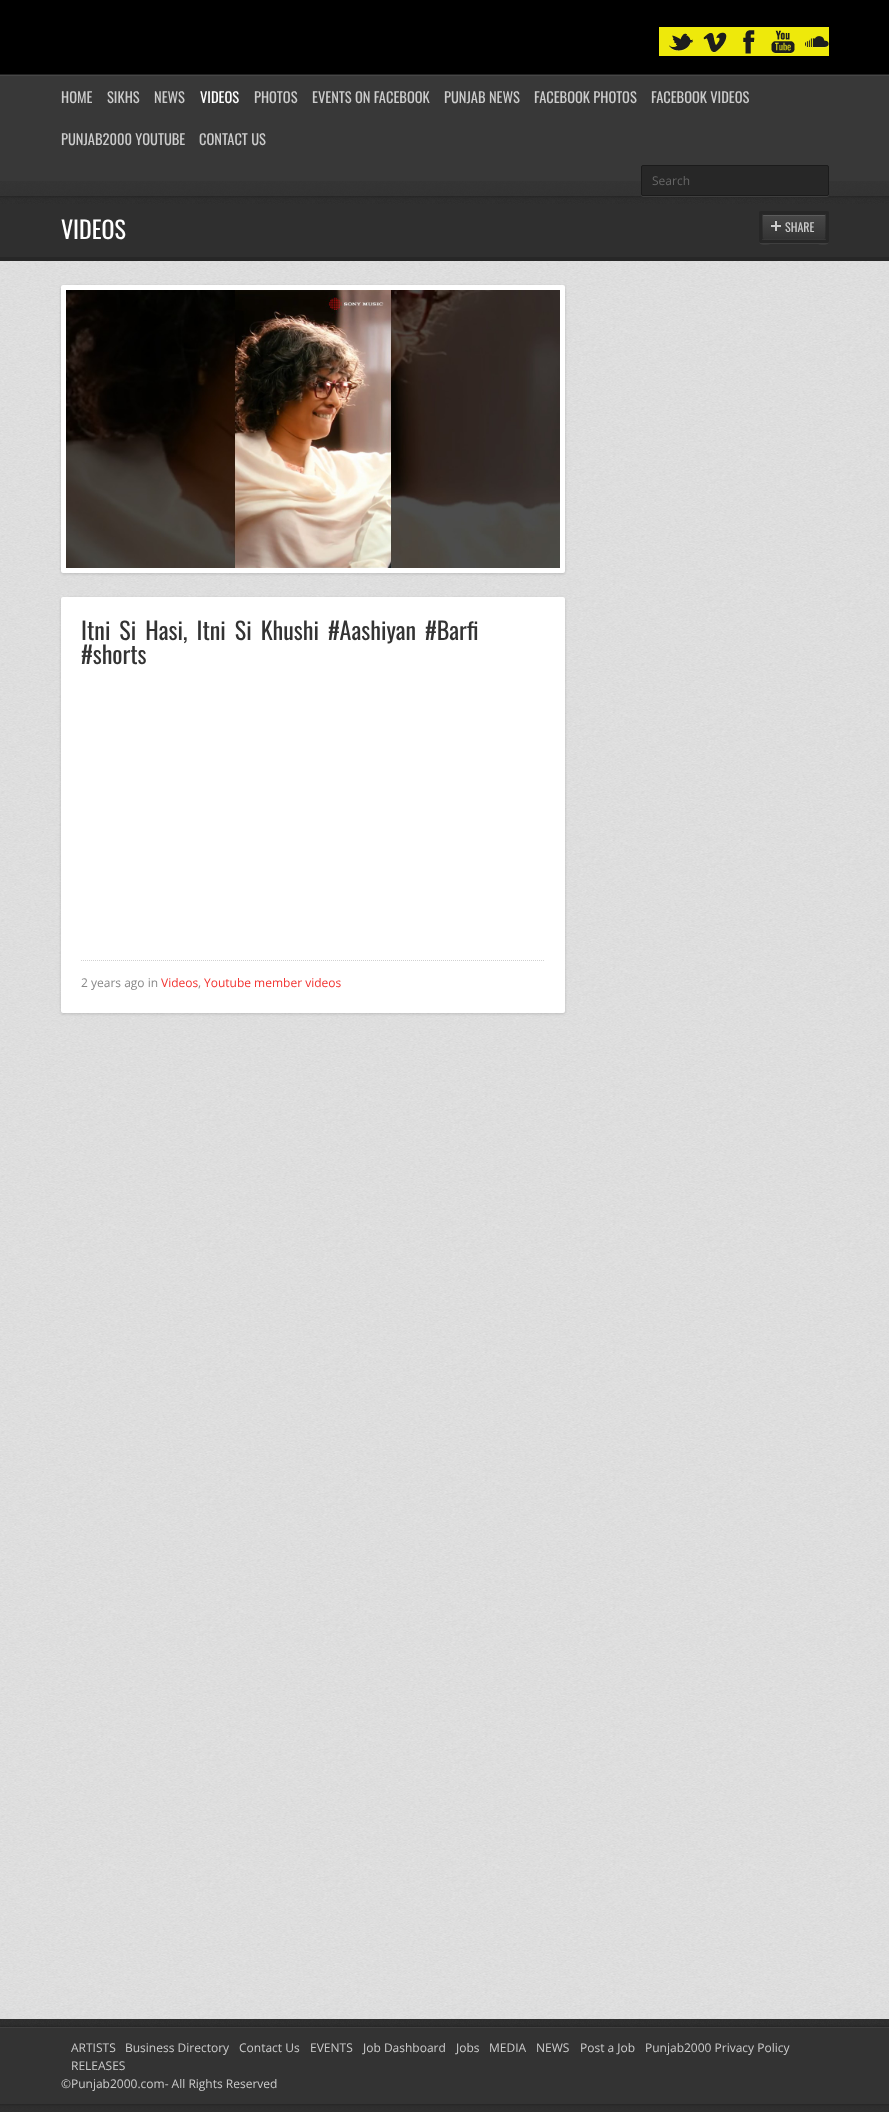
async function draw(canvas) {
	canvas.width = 889;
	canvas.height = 2112;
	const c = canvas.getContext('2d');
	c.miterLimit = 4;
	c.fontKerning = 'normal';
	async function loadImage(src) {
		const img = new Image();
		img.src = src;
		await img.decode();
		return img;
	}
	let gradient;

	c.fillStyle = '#fff';
	c.fillRect(0, 0, 889, 2112);
	c.drawImage(await loadImage('img1.png'), 0, 261, 889, 1758);
	c.fillStyle = '#383838';
	c.fillRect(0, 74, 889, 107);
	c.drawImage(await loadImage('img2.png'), 0, 181, 889, 23);
	c.fillStyle = '#000';
	c.fillRect(0, 0, 889, 74);
	c.fillStyle = '#eee90b';
	c.fillRect(659, 27, 170, 29);
	c.drawImage(await loadImage('img3.png'), 669, 33, 24, 19);
	c.drawImage(await loadImage('img4.png'), 703, 32, 24, 21);
	c.drawImage(await loadImage('img5.png'), 743, 30, 12, 25);
	c.drawImage(await loadImage('img6.png'), 771, 30, 24, 24);
	c.drawImage(await loadImage('img7.png'), 805, 36, 24, 12);
	c.drawImage(await loadImage('img8.png'), 0, 74, 889, 2);
	c.font = '14.5px Oswald';
	c.fillStyle = '#ccc';
	for (const [text, x, y] of [
		['HOME', 61, 103],
		['SIKHS', 107, 103],
		['NEWS', 154, 103],
	]) {
		c.fillText(text, x, y);
	}
	c.fillStyle = '#fff';
	c.fillText('VIDEOS', 200, 103);
	c.fillStyle = '#ccc';
	for (const [text, x, y] of [
		['PHOTOS', 254, 103],
		['EVENTS ON FACEBOOK', 312, 103],
		['PUNJAB NEWS', 444, 103],
		['FACEBOOK PHOTOS', 534, 103],
		['FACEBOOK VIDEOS', 651, 103],
		['PUNJAB2000 YOUTUBE', 61, 145],
		['CONTACT US', 199, 145],
	]) {
		c.fillText(text, x, y);
	}
	c.fillStyle = '#3f3f3f';
	c.beginPath();
	c.moveTo(641, 194);
	c.lineTo(641, 195);
	c.bezierCurveTo(641, 196, 642, 197, 643, 197);
	c.lineTo(827, 197);
	c.bezierCurveTo(828, 197, 829, 196, 829, 195);
	c.lineTo(829, 194);
	c.bezierCurveTo(829, 195, 828, 196, 827, 196);
	c.lineTo(643, 196);
	c.bezierCurveTo(642, 196, 641, 195, 641, 194);
	c.closePath();
	c.fill();
	c.fillStyle = '#272727';
	c.beginPath();
	c.roundRect(641.5, 165.5, 187, 30, 1.5);
	c.fill();
	c.strokeStyle = '#1b1b1b';
	c.stroke();
	c.font = '12px Open Sans';
	c.fillStyle = '#666';
	c.fillText('Search', 652, 185);
	c.fillStyle = '#2f2f2f';
	c.fillRect(0, 204, 889, 53);
	c.fillStyle = '#272727';
	c.fillRect(0, 257, 889, 4);
	c.font = '24px Oswald';
	c.fillStyle = '#fff';
	c.fillText('VIDEOS', 61, 239);
	c.fillStyle = '#3f3f3f';
	c.beginPath();
	c.moveTo(759, 241);
	c.bezierCurveTo(759, 247, 768, 244, 772, 244);
	c.lineTo(816, 244);
	c.bezierCurveTo(820, 244, 829, 247, 829, 241);
	c.bezierCurveTo(829, 242, 828, 243, 827, 243);
	c.lineTo(760, 243);
	c.closePath();
	c.fill();
	c.beginPath();
	c.roundRect(760.5, 212.5, 67, 29, 0.5);
	c.strokeStyle = '#272727';
	c.lineWidth = 3;
	c.stroke();
	c.save();
	c.beginPath();
	c.roundRect(762, 214, 64, 26, 2);
	c.clip();
	gradient = c.createLinearGradient(763, 215, 763, 191);
	gradient.addColorStop(0, '#333');
	gradient.addColorStop(0.5, '#3e3e3e');
	gradient.addColorStop(1, '#484848');
	c.fillStyle = gradient;
	c.fillRect(762, 214, 64, 1);
	gradient = c.createLinearGradient(763, 239, 763, 215);
	gradient.addColorStop(0, '#343434');
	gradient.addColorStop(0.5, '#3e3e3e');
	gradient.addColorStop(1, '#484848');
	c.fillStyle = gradient;
	c.fillRect(762, 215, 64, 24);
	gradient = c.createLinearGradient(763, 263, 763, 239);
	gradient.addColorStop(0, '#333');
	gradient.addColorStop(0.5, '#3e3e3e');
	gradient.addColorStop(1, '#484848');
	c.fillStyle = gradient;
	c.fillRect(762, 239, 64, 1);
	c.restore();
	c.beginPath();
	c.roundRect(762.5, 214.5, 63, 25, 1.5);
	c.strokeStyle = '#00000033';
	c.lineWidth = 1;
	c.stroke();
	c.drawImage(await loadImage('img9.png'), 771, 220, 10, 11);
	c.fillStyle = '#ffffff1c';
	c.fillRect(763, 215, 62, 1);
	c.font = '12px Oswald';
	c.fillStyle = '#ccc';
	c.fillText('SHARE', 785, 232);
	c.fillStyle = '#00000026';
	c.filter = 'blur(1.5px)';
	c.beginPath();
	c.roundRect(61, 286, 504, 288, 2);
	c.fill();
	c.filter = 'none';
	c.fillStyle = '#fff';
	c.beginPath();
	c.roundRect(61, 285, 504, 288, 2);
	c.fill();
	c.drawImage(await loadImage('img10.png'), 66, 290, 494, 278);
	c.fillStyle = '#00000026';
	c.filter = 'blur(1.5px)';
	c.beginPath();
	c.roundRect(61, 598, 504, 416, 2);
	c.fill();
	c.filter = 'none';
	c.fillStyle = '#fff';
	c.beginPath();
	c.roundRect(61, 597, 504, 416, 2);
	c.fill();
	c.wordSpacing = '3.5px';
	c.font = '24px Oswald';
	c.fillStyle = '#333';
	c.fillText('Itni Si Hasi, Itni Si Khushi #Aashiyan #Barfi', 81, 640);
	c.wordSpacing = '0px';
	c.fillText('#shorts', 81, 664);
	c.beginPath();
	c.moveTo(81, 960.5);
	c.lineTo(545, 960.5);
	c.strokeStyle = '#d2d2d2';
	c.setLineDash([1, 1]);
	c.stroke();
	c.font = '12px Open Sans';
	c.fillStyle = '#888';
	c.fillText('2 years ago in', 81, 987);
	c.fillStyle = '#f23330';
	c.fillText('Videos', 161, 987);
	c.fillStyle = '#888';
	c.fillText(',', 198, 987);
	c.fillStyle = '#f23330';
	c.fillText('Youtube member videos', 204, 987);
	c.drawImage(await loadImage('img11.png'), 0, 2019, 889, 9);
	c.fillStyle = '#333';
	c.fillRect(0, 2028, 889, 76);
	c.drawImage(await loadImage('img12.png'), 0, 2104, 889, 8);
	c.fillStyle = '#ccc';
	for (const [text, x, y] of [
		['ARTISTS', 71, 2052],
		['Business Directory', 125, 2052],
		['Contact Us', 239, 2052],
		['EVENTS', 310, 2052],
		['Job Dashboard', 363, 2052],
		['Jobs', 456, 2052],
		['MEDIA', 489, 2052],
		['NEWS', 536, 2052],
		['Post a Job', 580, 2052],
		['Punjab2000 Privacy Policy', 645, 2052],
		['RELEASES', 71, 2070],
		['©Punjab2000.com- All Rights Reserved', 61, 2088],
	]) {
		c.fillText(text, x, y);
	}
}

draw(document.querySelector('canvas'));
